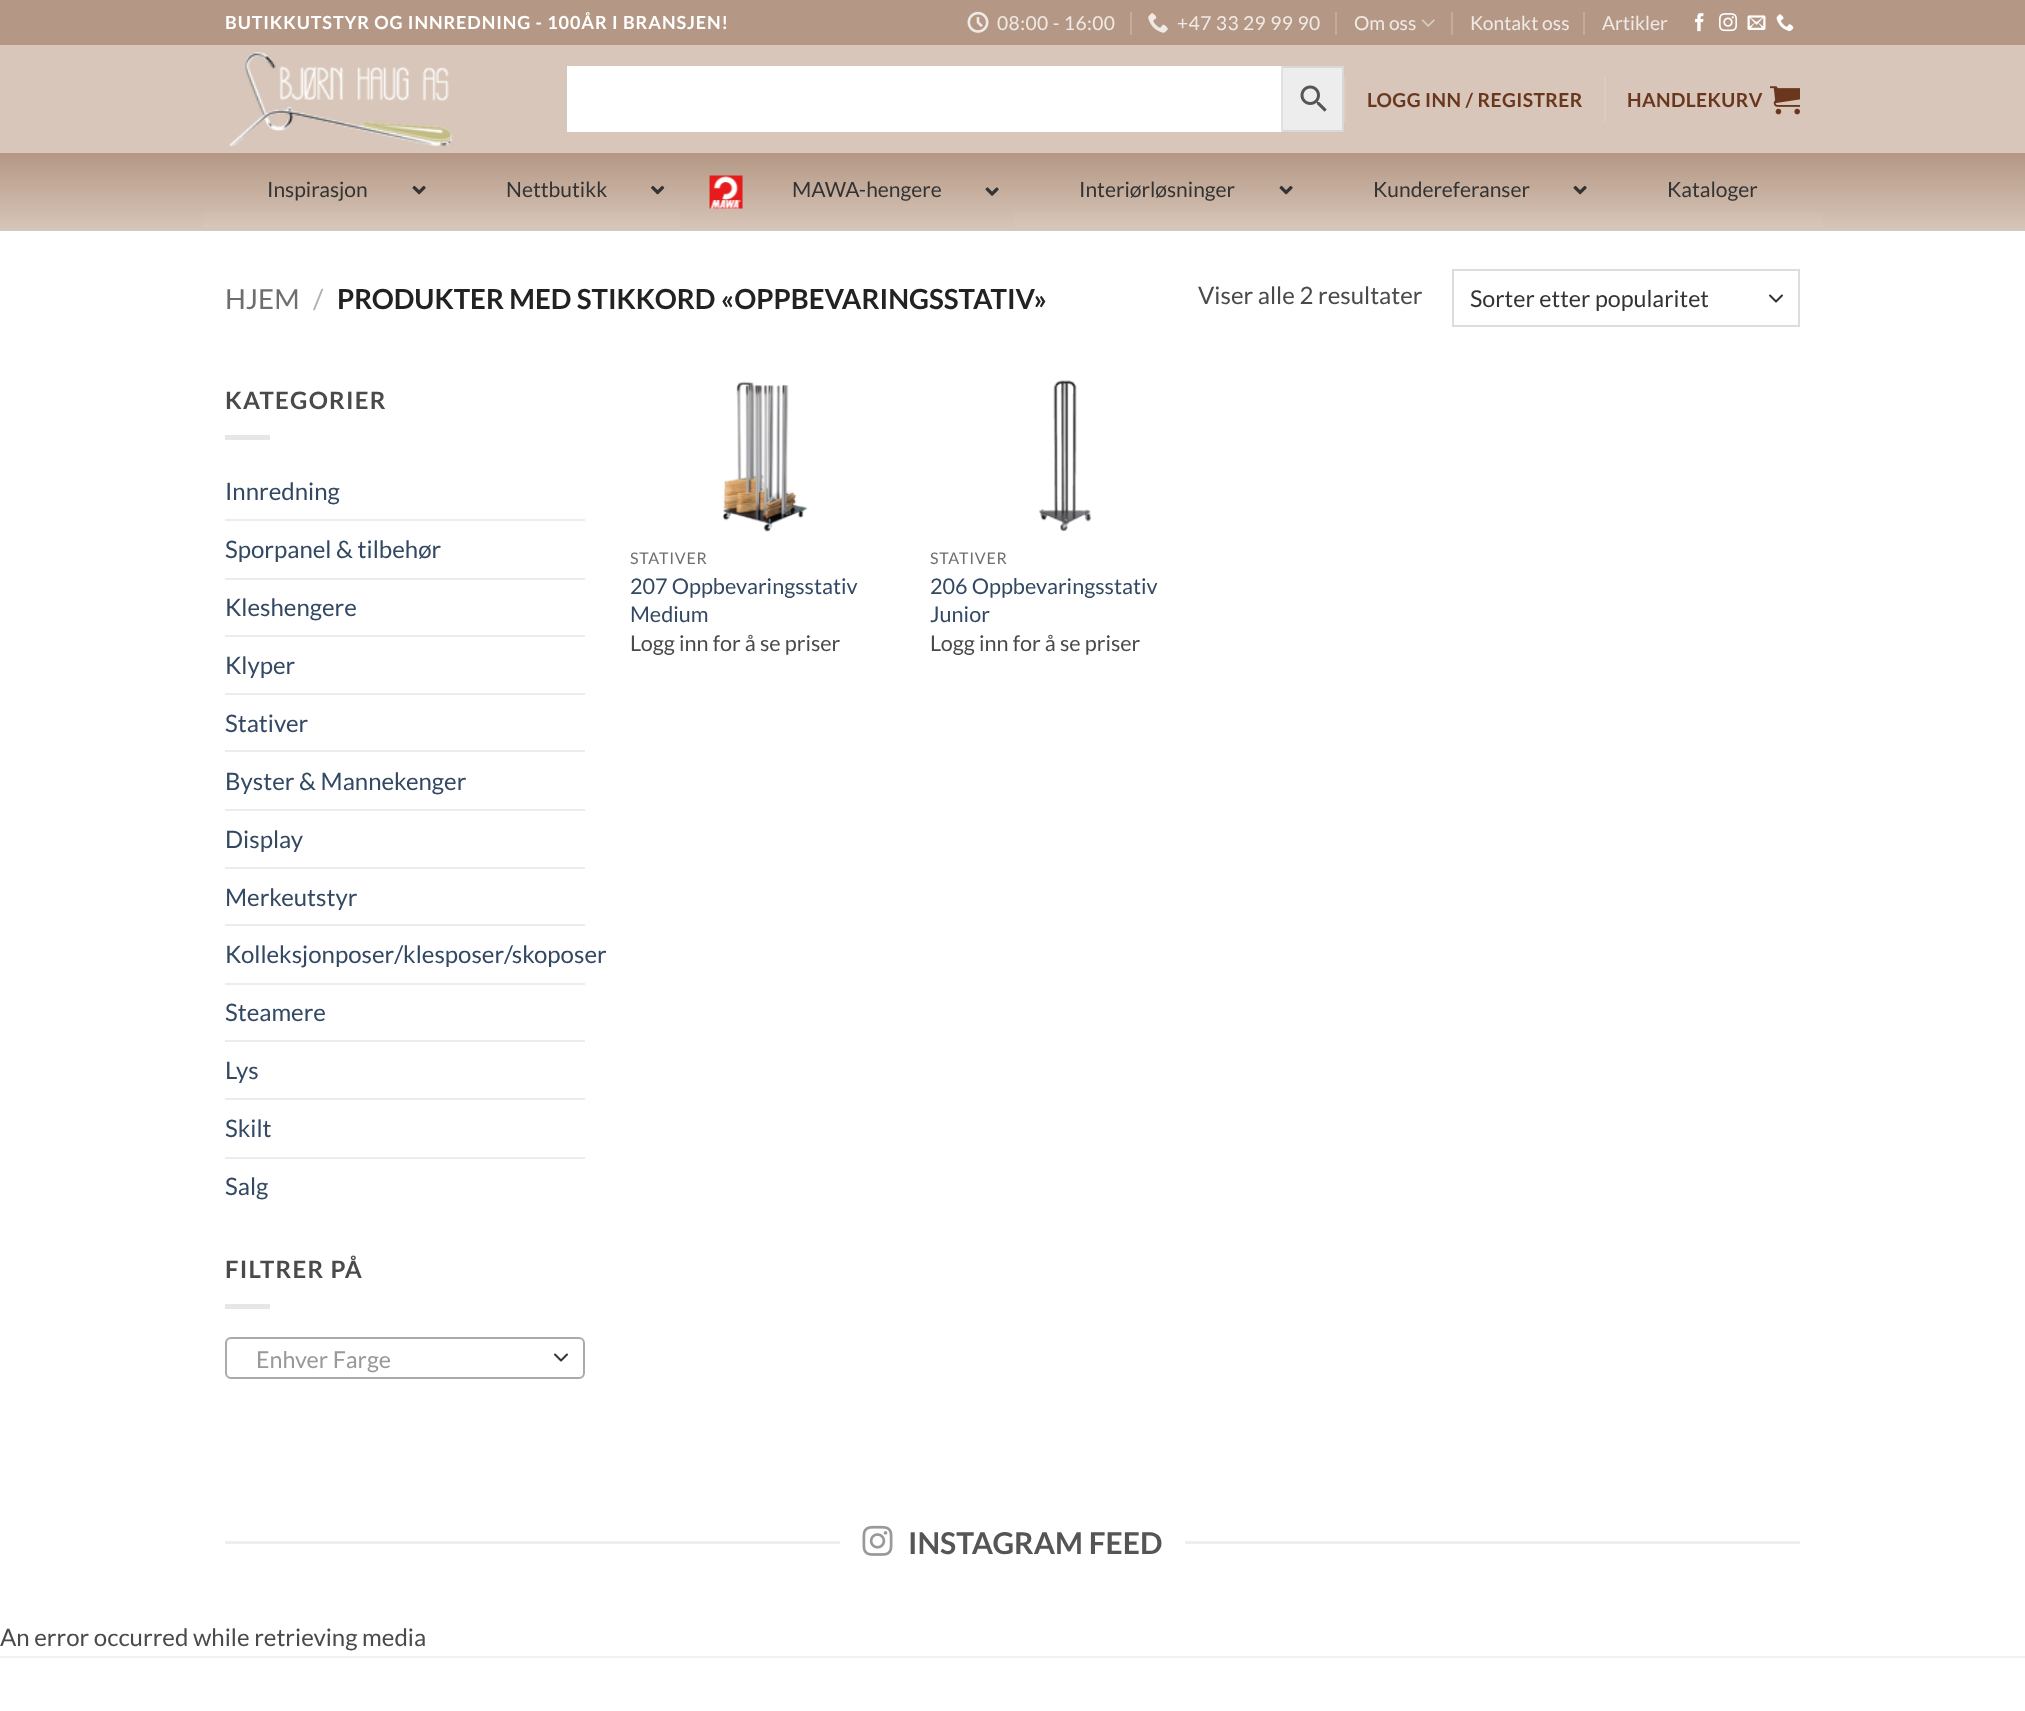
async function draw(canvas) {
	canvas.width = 2025;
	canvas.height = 1711;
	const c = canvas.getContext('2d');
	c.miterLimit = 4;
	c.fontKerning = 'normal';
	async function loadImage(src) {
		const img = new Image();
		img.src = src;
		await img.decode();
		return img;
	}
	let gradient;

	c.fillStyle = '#fff';
	c.fillRect(0, 0, 2025, 1711);
	c.fillStyle = '#b49784';
	c.fillRect(0, 0, 2025, 45);
	c.letterSpacing = '0.9px';
	c.font = 'bold 18px Lato';
	c.fillStyle = '#fff';
	c.fillText('BUTIKKUTSTYR OG INNREDNING - 100ÅR I BRANSJEN!', 225, 29);
	c.drawImage(await loadImage('img1.png'), 967, 11, 22, 22);
	c.letterSpacing = '0.4px';
	c.font = '19.25px Lato';
	c.fillStyle = '#f0eae6';
	c.fillText('08:00 - 16:00', 997, 30);
	c.fillStyle = '#c3ac9d';
	c.fillRect(1130, 12, 2, 23);
	c.drawImage(await loadImage('img2.png'), 1148, 13, 20, 20);
	c.fillStyle = '#f0eae6';
	c.fillText('+47 33 29 99 90', 1177, 30);
	c.fillStyle = '#c3ac9d';
	c.fillRect(1335, 12, 2, 23);
	c.letterSpacing = '0px';
	c.fillStyle = '#f0eae6';
	c.fillText('Om oss', 1354, 30);
	c.drawImage(await loadImage('img3.png'), 1421, 19, 14, 8);
	c.fillStyle = '#c3ac9d';
	c.fillRect(1451, 12, 2, 23);
	c.fillStyle = '#f0eae6';
	c.fillText('Kontakt oss', 1470, 30);
	c.fillStyle = '#c3ac9d';
	c.fillRect(1583, 12, 2, 23);
	c.fillStyle = '#f0eae6';
	c.fillText('Artikler', 1602, 30);
	c.drawImage(await loadImage('img4.png'), 1695, 13, 9, 19);
	c.drawImage(await loadImage('img5.png'), 1719, 13, 18, 19);
	c.drawImage(await loadImage('img6.png'), 1747, 15, 19, 15);
	c.drawImage(await loadImage('img7.png'), 1776, 14, 18, 18);
	c.fillStyle = '#d7c6b9';
	c.fillRect(0, 45, 2025, 108);
	c.drawImage(await loadImage('img8.png'), 229, 52, 224, 95);
	c.fillStyle = '#fff';
	c.fillRect(567, 66, 714, 66);
	c.fillStyle = '#ededed';
	c.beginPath();
	c.rect(1282, 67, 61, 64);
	c.fill();
	c.strokeStyle = '#d8d8d8';
	c.lineWidth = 2;
	c.stroke();
	c.fillStyle = '#ffffff33';
	c.beginPath();
	c.roundRect(567, 66, 716, 66, [15, 0, 0, 15]);
	c.fill();
	c.beginPath();
	c.roundRect(568, 67, 714, 64, [14, 0, 0, 14]);
	c.strokeStyle = '#ffffff17';
	c.stroke();
	c.drawImage(await loadImage('img9.png'), 1300, 85, 27, 27);
	c.fillStyle = '#dbccc0';
	c.fillRect(1344, 77, 2, 45);
	c.letterSpacing = '0.4px';
	c.font = 'bold 19.25px Lato';
	c.fillStyle = '#6a371e';
	c.fillText('LOGG INN / REGISTRER', 1367, 107);
	c.fillStyle = '#dbccc0';
	c.fillRect(1604, 77, 2, 45);
	c.fillStyle = '#6a371e';
	c.fillText('HANDLEKURV', 1627, 107);
	c.drawImage(await loadImage('img10.png'), 1770, 86, 30, 29);
	gradient = c.createLinearGradient(1013, 153, 1013, 231);
	gradient.addColorStop(0, '#b49784');
	gradient.addColorStop(1, '#d7c6b9');
	c.fillStyle = gradient;
	c.fillRect(0, 153, 2025, 78);
	gradient = c.createLinearGradient(322, 153, 322, 227);
	gradient.addColorStop(0, '#b49784');
	gradient.addColorStop(1, '#d7c6b9');
	c.fillStyle = gradient;
	c.fillRect(203, 212, 238, 15);
	c.letterSpacing = '0px';
	c.font = '21px Lato';
	c.fillStyle = '#333';
	c.fillText('Inspirasjon', 267, 197);
	c.drawImage(await loadImage('img11.png'), 412, 185, 14, 10);
	gradient = c.createLinearGradient(560, 153, 560, 227);
	gradient.addColorStop(0, '#b49784');
	gradient.addColorStop(1, '#d7c6b9');
	c.fillStyle = gradient;
	c.fillRect(441, 212, 239, 15);
	c.fillStyle = '#333';
	c.fillText('Nettbutikk', 506, 197);
	c.drawImage(await loadImage('img12.png'), 651, 185, 14, 10);
	c.drawImage(await loadImage('img13.png'), 709, 175, 34, 34);
	c.fillText('MAWA-hengere', 792, 197);
	c.drawImage(await loadImage('img14.png'), 985, 187, 14, 9);
	gradient = c.createLinearGradient(1161, 153, 1161, 227);
	gradient.addColorStop(0, '#b49784');
	gradient.addColorStop(1, '#d7c6b9');
	c.fillStyle = gradient;
	c.fillRect(1014, 212, 294, 15);
	c.fillStyle = '#333';
	c.fillText('Interiørløsninger', 1079, 197);
	c.drawImage(await loadImage('img11.png'), 1279, 185, 14, 10);
	gradient = c.createLinearGradient(1455, 153, 1455, 227);
	gradient.addColorStop(0, '#b49784');
	gradient.addColorStop(1, '#d7c6b9');
	c.fillStyle = gradient;
	c.fillRect(1308, 212, 294, 15);
	c.fillStyle = '#333';
	c.fillText('Kundereferanser', 1373, 197);
	c.drawImage(await loadImage('img11.png'), 1573, 185, 14, 10);
	gradient = c.createLinearGradient(1712, 153, 1712, 227);
	gradient.addColorStop(0, '#b49784');
	gradient.addColorStop(1, '#d7c6b9');
	c.fillStyle = gradient;
	c.fillRect(1602, 212, 221, 15);
	c.fillStyle = '#333';
	c.fillText('Kataloger', 1667, 197);
	c.font = '27.6px Lato';
	c.fillStyle = '#6e6e6e';
	c.fillText('HJEM', 225, 309);
	c.fillStyle = '#b2b2b2';
	c.fillText('/', 313, 309);
	c.font = 'bold 27.6px Lato';
	c.fillStyle = '#222';
	c.fillText('PRODUKTER MED STIKKORD «OPPBEVARINGSSTATIV»', 337, 309);
	c.font = '24px Lato';
	c.fillStyle = '#4a4a4a';
	c.fillText('Viser alle 2 resultater', 1198, 304);
	c.beginPath();
	c.moveTo(1770, 295.5);
	c.lineTo(1776, 301.5);
	c.lineTo(1782, 295.5);
	c.strokeStyle = '#333';
	c.lineCap = 'round';
	c.lineJoin = 'round';
	c.stroke();
	c.strokeStyle = '#ddd';
	c.lineJoin = 'miter';
	c.strokeRect(1453, 270, 346, 56);
	c.font = '23.25px Lato';
	c.fillStyle = '#333';
	c.fillText('Sorter etter popularitet', 1470, 307);
	c.letterSpacing = '1.25px';
	c.font = 'bold 24px Lato';
	c.fillStyle = '#4a4a4a';
	c.fillText('KATEGORIER', 225, 409);
	c.fillStyle = '#e6e6e6';
	c.fillRect(225, 435, 45, 5);
	c.letterSpacing = '0px';
	c.font = '24px Lato';
	c.fillStyle = '#334862';
	c.fillText('Innredning', 225, 500);
	c.fillStyle = '#ececec';
	c.fillRect(225, 519, 360, 2);
	c.fillStyle = '#334862';
	c.fillText('Sporpanel & tilbehør', 225, 558);
	c.fillStyle = '#ececec';
	c.fillRect(225, 578, 360, 2);
	c.fillStyle = '#334862';
	c.fillText('Kleshengere', 225, 616);
	c.fillStyle = '#ececec';
	c.fillRect(225, 635, 360, 2);
	c.fillStyle = '#334862';
	c.fillText('Klyper', 225, 674);
	c.fillStyle = '#ececec';
	c.fillRect(225, 693, 360, 2);
	c.fillStyle = '#334862';
	c.fillText('Stativer', 225, 732);
	c.fillStyle = '#ececec';
	c.fillRect(225, 750, 360, 2);
	c.fillStyle = '#334862';
	c.fillText('Byster & Mannekenger', 225, 790);
	c.fillStyle = '#ececec';
	c.fillRect(225, 809, 360, 2);
	c.fillStyle = '#334862';
	c.fillText('Display', 225, 848);
	c.fillStyle = '#ececec';
	c.fillRect(225, 867, 360, 2);
	c.fillStyle = '#334862';
	c.fillText('Merkeutstyr', 225, 906);
	c.fillStyle = '#ececec';
	c.fillRect(225, 924, 360, 2);
	c.fillStyle = '#334862';
	c.fillText('Kolleksjonposer/klesposer/skoposer', 225, 963);
	c.fillStyle = '#ececec';
	c.fillRect(225, 983, 360, 2);
	c.fillStyle = '#334862';
	c.fillText('Steamere', 225, 1021);
	c.fillStyle = '#ececec';
	c.fillRect(225, 1040, 360, 2);
	c.fillStyle = '#334862';
	c.fillText('Lys', 225, 1079);
	c.fillStyle = '#ececec';
	c.fillRect(225, 1098, 360, 2);
	c.fillStyle = '#334862';
	c.fillText('Skilt', 225, 1137);
	c.fillStyle = '#ececec';
	c.fillRect(225, 1157, 360, 2);
	c.fillStyle = '#334862';
	c.fillText('Salg', 225, 1195);
	c.letterSpacing = '1.25px';
	c.font = 'bold 24px Lato';
	c.fillStyle = '#4a4a4a';
	c.fillText('FILTRER PÅ', 225, 1278);
	c.fillStyle = '#e6e6e6';
	c.fillRect(225, 1304, 45, 5);
	c.beginPath();
	c.moveTo(555, 1354.5);
	c.lineTo(561, 1360.5);
	c.lineTo(567, 1354.5);
	c.strokeStyle = '#333';
	c.lineJoin = 'round';
	c.stroke();
	c.beginPath();
	c.roundRect(226, 1338, 358, 40, 5);
	c.strokeStyle = '#aaa';
	c.lineJoin = 'miter';
	c.stroke();
	c.letterSpacing = '0px';
	c.font = '23.25px Lato';
	c.fillStyle = '#999';
	c.fillText('Enhver Farge', 256, 1368);
	c.drawImage(await loadImage('img15.png'), 722, 381, 86, 151);
	c.letterSpacing = '0.75px';
	c.font = '16px Lato';
	c.fillStyle = '#6e6e6e';
	c.fillText('STATIVER', 630, 564);
	c.letterSpacing = '0px';
	c.font = '21.6px Lato';
	c.fillStyle = '#334862';
	c.fillText('207 Oppbevaringsstativ', 630, 594);
	c.fillText('Medium', 630, 622);
	c.fillStyle = '#4a4a4a';
	c.fillText('Logg inn for å se priser', 630, 651);
	c.drawImage(await loadImage('img16.png'), 1039, 380, 53, 152);
	c.letterSpacing = '0.75px';
	c.font = '16px Lato';
	c.fillStyle = '#6e6e6e';
	c.fillText('STATIVER', 930, 564);
	c.letterSpacing = '0px';
	c.font = '21.6px Lato';
	c.fillStyle = '#334862';
	c.fillText('206 Oppbevaringsstativ', 930, 594);
	c.fillText('Junior', 930, 622);
	c.fillStyle = '#4a4a4a';
	c.fillText('Logg inn for å se priser', 930, 651);
	c.fillStyle = '#eee';
	c.fillRect(225, 1541, 615, 3);
	c.drawImage(await loadImage('img17.png'), 862, 1525, 31, 31);
	c.font = 'bold 30px Lato';
	c.fillStyle = '#555';
	c.fillText('INSTAGRAM FEED', 908, 1554);
	c.fillStyle = '#eee';
	c.fillRect(1185, 1541, 615, 3);
	c.font = '24px Lato';
	c.fillStyle = '#4a4a4a';
	c.fillText('An error occurred while retrieving media', 0, 1646);
	c.fillStyle = '#f2f2f2';
	c.fillRect(0, 1656, 2025, 2);
}

draw(document.querySelector('canvas'));
